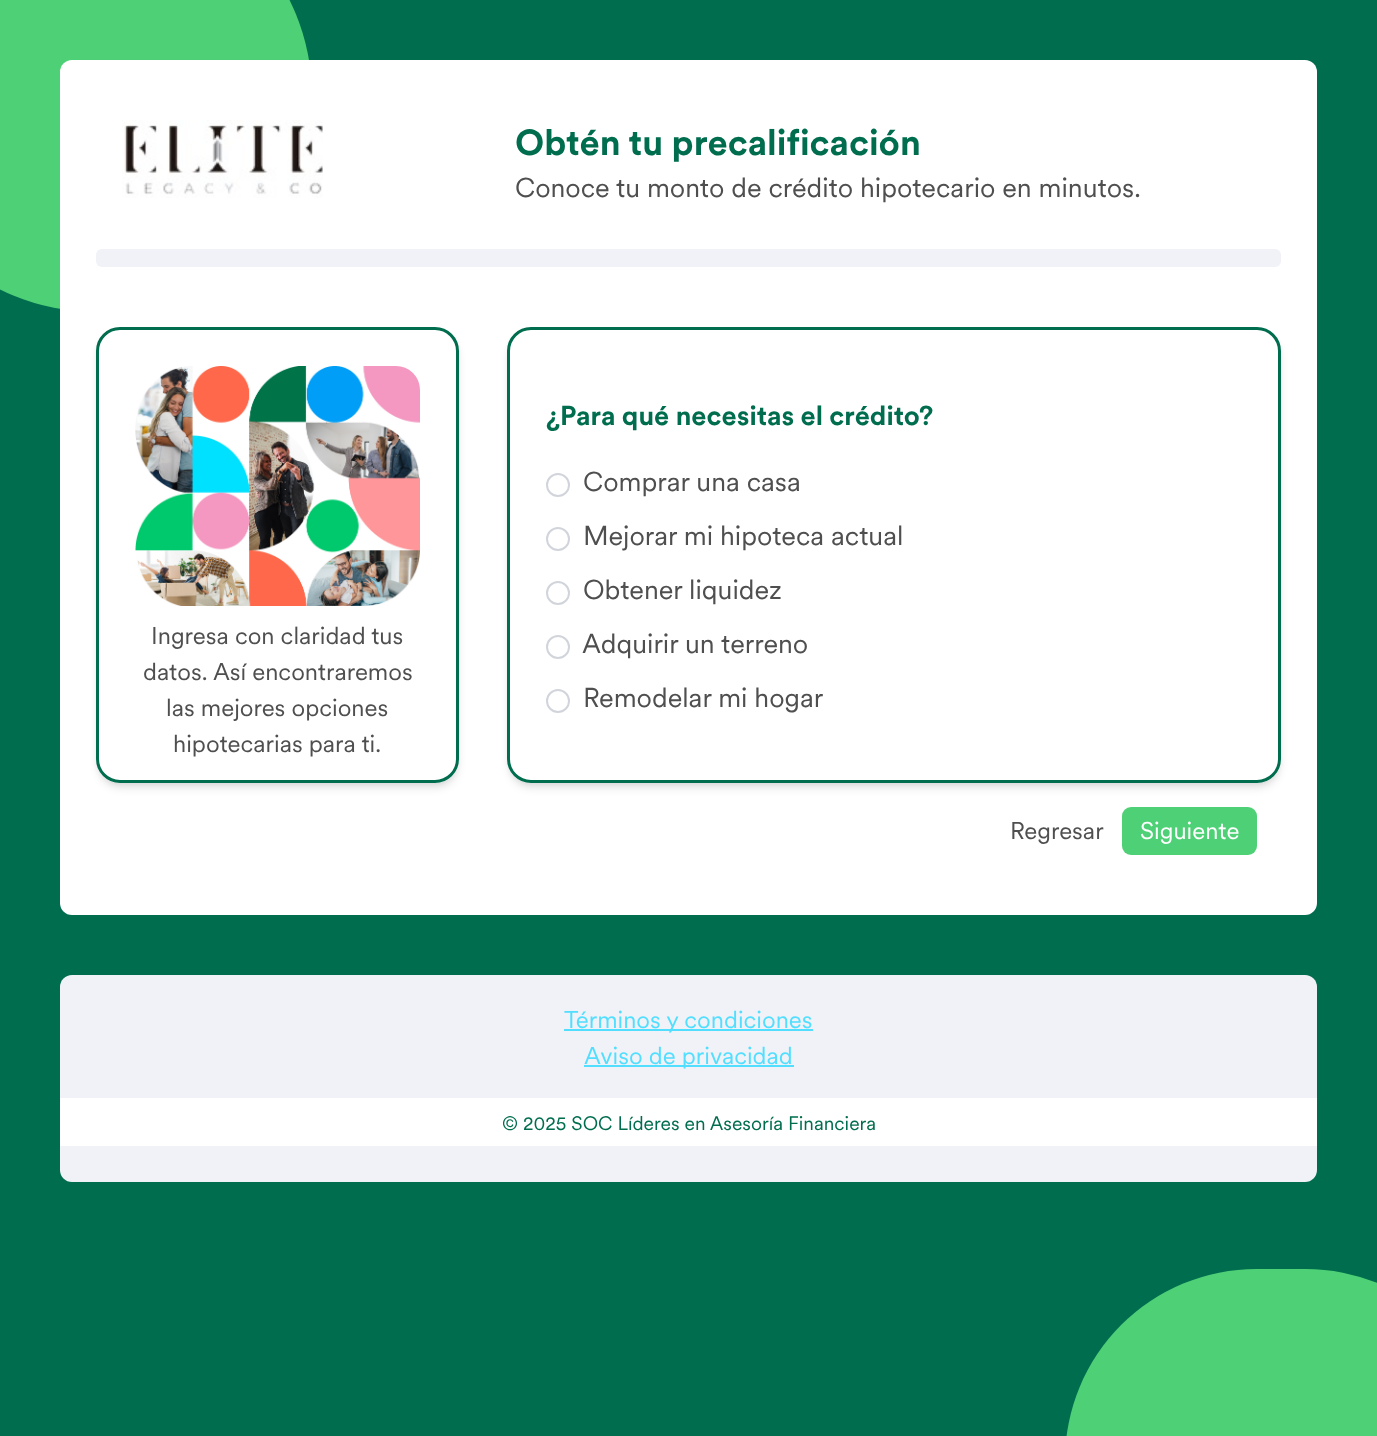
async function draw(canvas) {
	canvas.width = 1377;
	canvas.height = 1436;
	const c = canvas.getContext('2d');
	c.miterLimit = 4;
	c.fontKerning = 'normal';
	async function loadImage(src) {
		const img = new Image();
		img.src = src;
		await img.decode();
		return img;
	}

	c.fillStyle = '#006d4e';
	c.fillRect(0, 0, 1377, 1436);
	c.fillStyle = '#4ed176';
	c.beginPath();
	c.arc(96, 96, 216, 0, 2 * Math.PI);
	c.fill();
	c.fillStyle = '#fff';
	c.beginPath();
	c.roundRect(60, 60, 1257, 855, 12);
	c.fill();
	c.drawImage(await loadImage('img1.png'), 122, 120, 201, 78);
	c.font = 'bold 36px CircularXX';
	c.fillStyle = '#006d4e';
	c.fillText('Obtén tu precalificación', 515, 155);
	c.font = '27px CircularXX';
	c.fillStyle = '#4f4f4f';
	c.fillText('Conoce tu monto de crédito hipotecario en minutos.', 515, 197);
	c.fillStyle = '#f1f2f7';
	c.beginPath();
	c.roundRect(96, 249, 1185, 18, 6);
	c.fill();
	c.save();
	c.beginPath();
	c.moveTo(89, 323);
	c.lineTo(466, 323);
	c.lineTo(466, 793);
	c.lineTo(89, 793);
	c.closePath();
	c.moveTo(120, 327);
	c.lineTo(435, 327);
	c.bezierCurveTo(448.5, 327, 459, 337.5, 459, 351);
	c.lineTo(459, 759);
	c.bezierCurveTo(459, 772.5, 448.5, 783, 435, 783);
	c.lineTo(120, 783);
	c.bezierCurveTo(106.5, 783, 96, 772.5, 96, 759);
	c.lineTo(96, 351);
	c.bezierCurveTo(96, 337.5, 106.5, 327, 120, 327);
	c.closePath();
	c.clip('evenodd');
	c.fillStyle = '#0000001a';
	c.filter = 'blur(3px)';
	c.beginPath();
	c.roundRect(99, 333, 357, 450, 21);
	c.fill();
	c.filter = 'none';
	c.restore();
	c.save();
	c.beginPath();
	c.moveTo(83, 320);
	c.lineTo(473, 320);
	c.lineTo(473, 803);
	c.lineTo(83, 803);
	c.closePath();
	c.moveTo(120, 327);
	c.lineTo(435, 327);
	c.bezierCurveTo(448.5, 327, 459, 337.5, 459, 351);
	c.lineTo(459, 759);
	c.bezierCurveTo(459, 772.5, 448.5, 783, 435, 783);
	c.lineTo(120, 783);
	c.bezierCurveTo(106.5, 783, 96, 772.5, 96, 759);
	c.lineTo(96, 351);
	c.bezierCurveTo(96, 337.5, 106.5, 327, 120, 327);
	c.closePath();
	c.clip('evenodd');
	c.fillStyle = '#0000001a';
	c.filter = 'blur(4.5px)';
	c.beginPath();
	c.roundRect(98, 335, 360, 453, 23);
	c.fill();
	c.filter = 'none';
	c.restore();
	c.beginPath();
	c.roundRect(97.5, 328.5, 360, 453, 22.5);
	c.strokeStyle = '#006d4e';
	c.lineWidth = 3;
	c.stroke();
	c.drawImage(await loadImage('img2.png'), 135, 366, 285, 240);
	c.font = '24px CircularXX';
	c.fillStyle = '#4f4f4f';
	for (const [text, x, y] of [
		['Ingresa con claridad tus', 151, 644],
		['datos. Así encontraremos', 143, 680],
		['las mejores opciones', 166, 716],
		['hipotecarias para ti.', 173, 752],
	]) {
		c.fillText(text, x, y);
	}
	c.save();
	c.beginPath();
	c.moveTo(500, 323);
	c.lineTo(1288, 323);
	c.lineTo(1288, 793);
	c.lineTo(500, 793);
	c.closePath();
	c.moveTo(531, 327);
	c.lineTo(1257, 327);
	c.bezierCurveTo(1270.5, 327, 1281, 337.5, 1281, 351);
	c.lineTo(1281, 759);
	c.bezierCurveTo(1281, 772.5, 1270.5, 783, 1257, 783);
	c.lineTo(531, 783);
	c.bezierCurveTo(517.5, 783, 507, 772.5, 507, 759);
	c.lineTo(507, 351);
	c.bezierCurveTo(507, 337.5, 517.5, 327, 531, 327);
	c.closePath();
	c.clip('evenodd');
	c.fillStyle = '#0000001a';
	c.filter = 'blur(3px)';
	c.beginPath();
	c.roundRect(510, 333, 768, 450, 21);
	c.fill();
	c.filter = 'none';
	c.restore();
	c.save();
	c.beginPath();
	c.moveTo(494, 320);
	c.lineTo(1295, 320);
	c.lineTo(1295, 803);
	c.lineTo(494, 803);
	c.closePath();
	c.moveTo(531, 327);
	c.lineTo(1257, 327);
	c.bezierCurveTo(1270.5, 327, 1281, 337.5, 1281, 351);
	c.lineTo(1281, 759);
	c.bezierCurveTo(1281, 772.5, 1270.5, 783, 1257, 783);
	c.lineTo(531, 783);
	c.bezierCurveTo(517.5, 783, 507, 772.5, 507, 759);
	c.lineTo(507, 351);
	c.bezierCurveTo(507, 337.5, 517.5, 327, 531, 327);
	c.closePath();
	c.clip('evenodd');
	c.fillStyle = '#0000001a';
	c.filter = 'blur(4.5px)';
	c.beginPath();
	c.roundRect(509, 335, 771, 453, 23);
	c.fill();
	c.filter = 'none';
	c.restore();
	c.beginPath();
	c.roundRect(508.5, 328.5, 771, 453, 22.5);
	c.stroke();
	c.font = 'bold 27px CircularXX';
	c.fillStyle = '#006d4e';
	c.fillText('¿Para qué necesitas el crédito?', 546, 425);
	c.beginPath();
	c.arc(558, 485, 11, 0, 2 * Math.PI);
	c.strokeStyle = '#d1d5db';
	c.lineWidth = 2;
	c.stroke();
	c.font = '27px CircularXX';
	c.fillStyle = '#4f4f4f';
	c.fillText('Comprar una casa', 583, 491);
	c.beginPath();
	c.arc(558, 539, 11, 0, 2 * Math.PI);
	c.stroke();
	c.fillText('Mejorar mi hipoteca actual', 583, 545);
	c.beginPath();
	c.arc(558, 593, 11, 0, 2 * Math.PI);
	c.stroke();
	c.fillText('Obtener liquidez', 583, 599);
	c.beginPath();
	c.arc(558, 647, 11, 0, 2 * Math.PI);
	c.stroke();
	c.fillText('Adquirir un terreno', 582, 653);
	c.beginPath();
	c.arc(558, 701, 11, 0, 2 * Math.PI);
	c.stroke();
	c.fillText('Remodelar mi hogar', 583, 707);
	c.font = '24px CircularXX';
	c.fillText('Regresar', 1010, 839);
	c.fillStyle = '#4ed176';
	c.beginPath();
	c.roundRect(1122, 807, 135, 48, 9);
	c.fill();
	c.fillStyle = '#fff';
	c.fillText('Siguiente', 1140, 839);
	c.fillStyle = '#f1f2f7';
	c.beginPath();
	c.roundRect(60, 975, 1257, 207, 12);
	c.fill();
	c.fillStyle = '#52deff';
	c.fillRect(564, 1029, 249, 2);
	c.fillText('Términos y condiciones', 564, 1028);
	c.fillRect(584, 1065, 210, 2);
	c.fillText('Aviso de privacidad', 584, 1064);
	c.fillStyle = '#fff';
	c.fillRect(60, 1098, 1257, 48);
	c.font = '19.25px CircularXX';
	c.fillStyle = '#006d4e';
	c.fillText('© 2025 SOC Líderes en Asesoría Financiera', 502, 1130);
	c.fillStyle = '#4ed176';
	c.beginPath();
	c.roundRect(1065, 1269, 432, 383, 216);
	c.fill();
}

draw(document.querySelector('canvas'));
